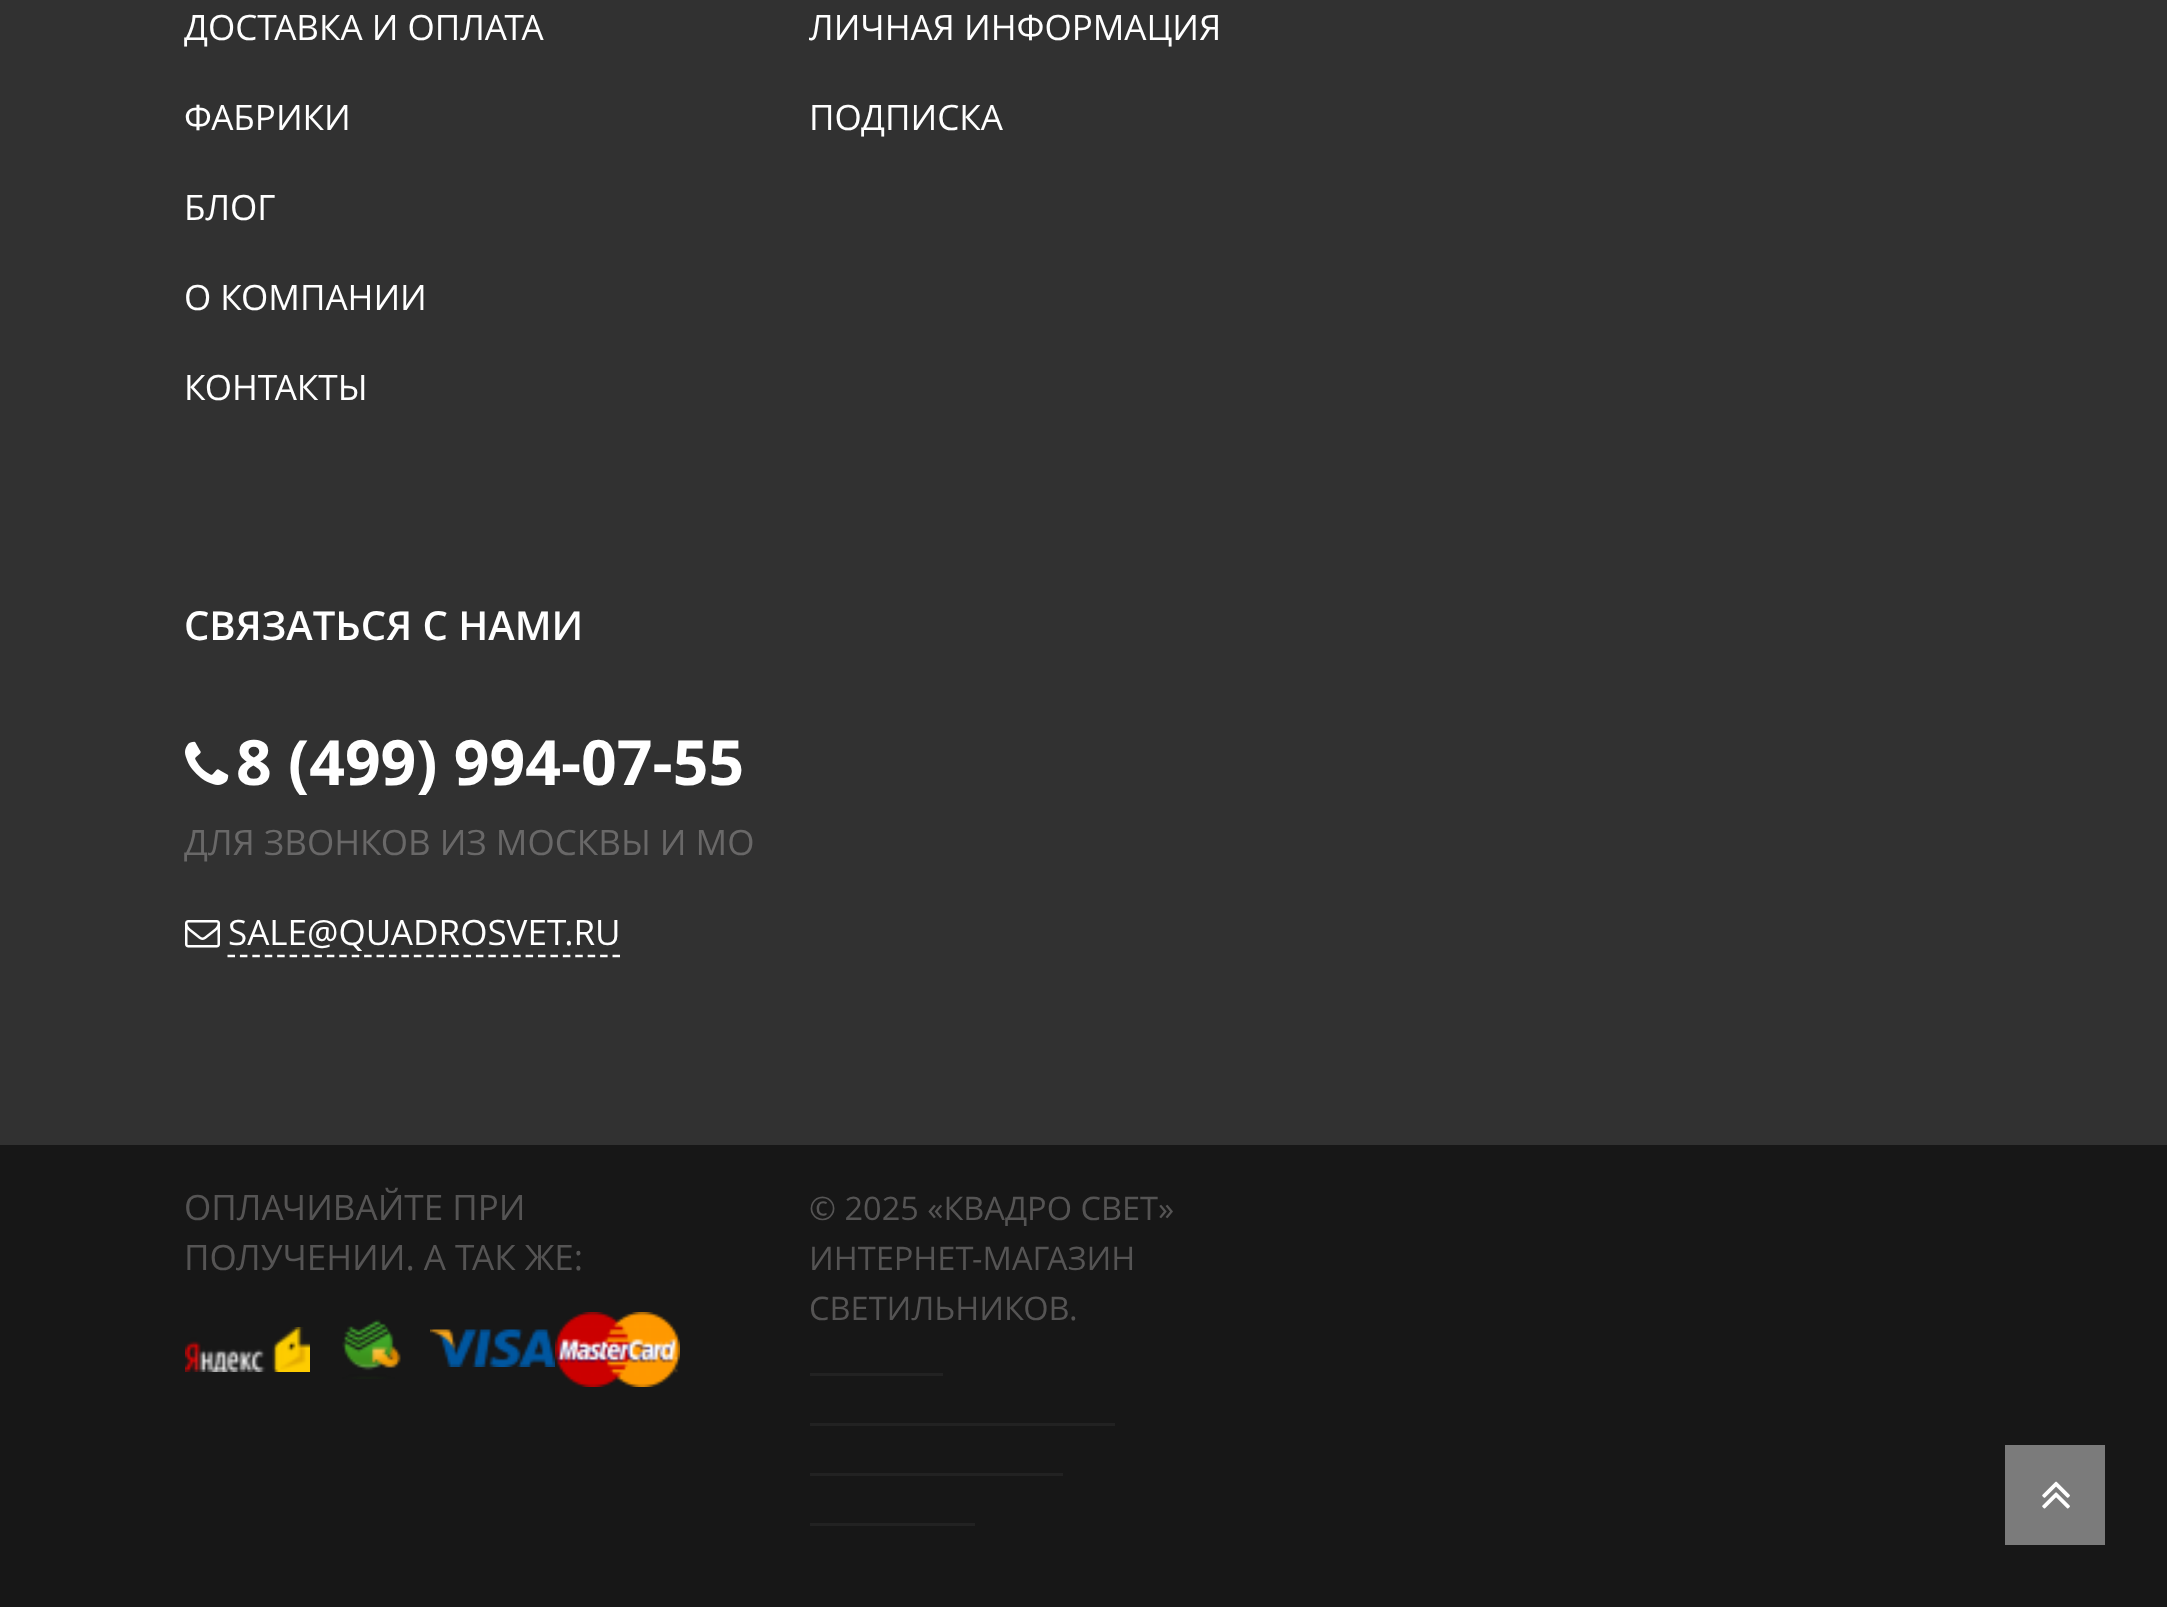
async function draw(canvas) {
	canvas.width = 2167;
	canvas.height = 1607;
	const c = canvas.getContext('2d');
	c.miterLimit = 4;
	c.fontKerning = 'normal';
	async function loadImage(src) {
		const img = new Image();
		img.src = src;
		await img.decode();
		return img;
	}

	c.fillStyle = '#313131';
	c.fillRect(0, 0, 2167, 1607);
	c.font = '35px Open Sans';
	c.fillStyle = '#fff';
	for (const [text, x, y] of [
		['ДОСТАВКА И ОПЛАТА', 184, 40],
		['ФАБРИКИ', 184, 130],
		['БЛОГ', 184, 220],
		['О КОМПАНИИ', 184, 310],
		['КОНТАКТЫ', 184, 400],
		['ЛИЧНАЯ ИНФОРМАЦИЯ', 809, 40],
		['ПОДПИСКА', 809, 130],
	]) {
		c.fillText(text, x, y);
	}
	c.font = '600 40px Open Sans';
	c.fillText('СВЯЗАТЬСЯ С НАМИ', 184, 640);
	c.drawImage(await loadImage('img1.png'), 185, 741, 44, 44);
	c.font = 'bold 62.5px Open Sans';
	c.fillText('8 (499) 994-07-55', 236, 785);
	c.font = '35px Open Sans';
	c.fillStyle = '#696868';
	c.fillText('ДЛЯ ЗВОНКОВ ИЗ МОСКВЫ И МО', 184, 855);
	c.drawImage(await loadImage('img2.png'), 185, 920, 35, 28);
	c.fillStyle = '#fff';
	c.fillText('SALE@QUADROSVET.RU', 228, 945);
	c.beginPath();
	c.moveTo(227.5, 956);
	c.lineTo(620, 956);
	c.strokeStyle = '#fff';
	c.lineWidth = 2.5;
	c.setLineDash([7.5, 4.92]);
	c.stroke();
	c.fillStyle = '#171717';
	c.fillRect(0, 1145, 2167, 462);
	c.fillStyle = '#555454';
	c.fillText('ОПЛАЧИВАЙТЕ ПРИ', 184, 1220);
	c.fillText('ПОЛУЧЕНИИ. А ТАК ЖЕ:', 184, 1270);
	c.drawImage(await loadImage('img3.png'), 185, 1327, 125, 45);
	c.drawImage(await loadImage('img4.png'), 342, 1319, 59, 60);
	c.drawImage(await loadImage('img5.png'), 430, 1329, 125, 38);
	c.drawImage(await loadImage('img6.png'), 555, 1312, 125, 75);
	c.font = '32.5px Open Sans';
	for (const [text, x, y] of [
		['© 2025 «КВАДРО СВЕТ»', 809, 1220],
		['ИНТЕРНЕТ-МАГАЗИН', 809, 1270],
		['СВЕТИЛЬНИКОВ', 809, 1320],
		['.', 1069, 1320],
	]) {
		c.fillText(text, x, y);
	}
	for (const [x, y, w, h, color] of [
		[810, 1373, 133, 3, '#222'],
		[810, 1423, 305, 3, '#222'],
		[810, 1473, 253, 3, '#222'],
		[810, 1523, 165, 3, '#222'],
		[2005, 1445, 100, 100, '#7b7b7b'],
	]) {
		c.fillStyle = color;
		c.fillRect(x, y, w, h);
	}
	c.drawImage(await loadImage('img7.png'), 2042, 1481, 28, 28);
}

draw(document.querySelector('canvas'));
